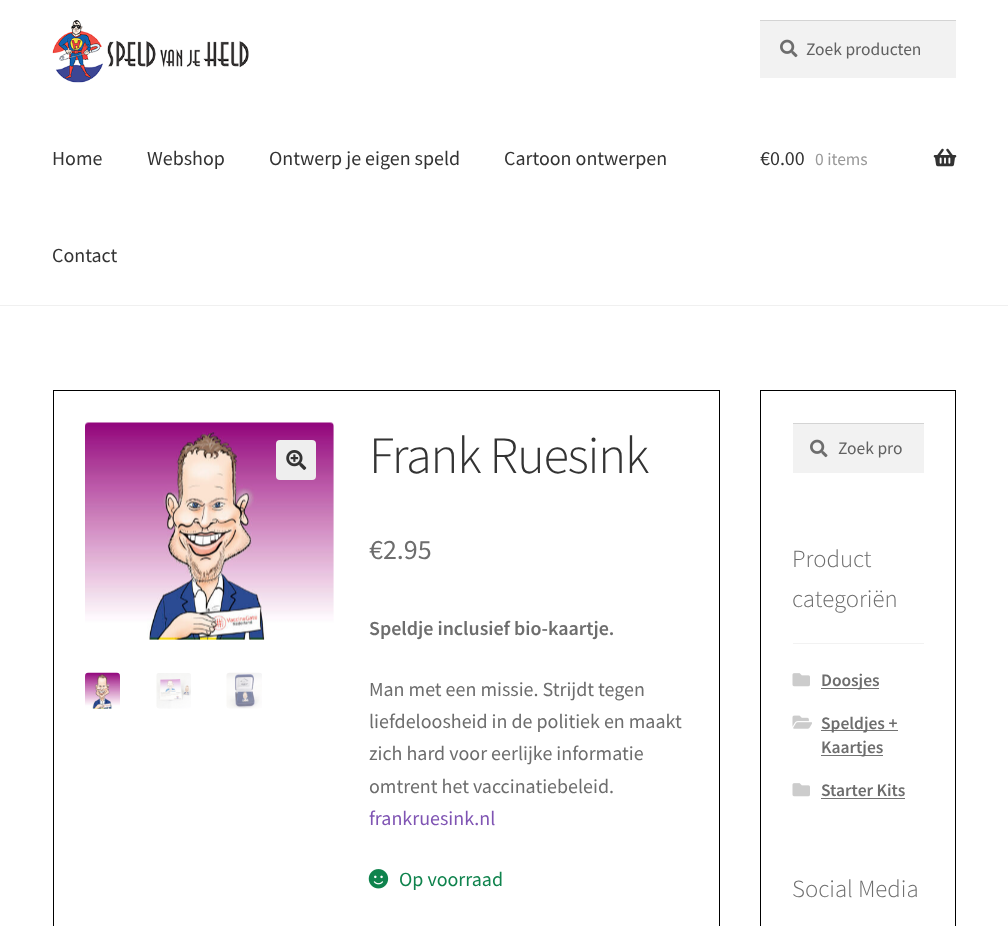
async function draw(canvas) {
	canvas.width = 1008;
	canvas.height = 926;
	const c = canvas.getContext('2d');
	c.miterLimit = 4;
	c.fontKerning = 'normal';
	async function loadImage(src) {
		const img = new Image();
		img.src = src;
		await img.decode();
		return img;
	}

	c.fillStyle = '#fff';
	c.fillRect(0, 0, 1008, 926);
	c.fillStyle = '#f0f0f0';
	c.fillRect(0, 305, 1008, 1);
	c.drawImage(await loadImage('img1.png'), 52, 20, 197, 63);
	c.fillStyle = '#f2f2f2';
	c.fillRect(760, 21, 196, 57);
	c.drawImage(await loadImage('img2.png'), 780, 39, 18, 19);
	c.fillStyle = '#d4d4d4';
	c.fillRect(760, 20, 196, 1);
	c.font = '17.5px Source Sans Pro';
	c.fillStyle = '#616161';
	c.fillText('Zoek producten', 806, 55);
	c.font = '20px Source Sans Pro';
	c.fillStyle = '#333';
	for (const [text, x, y] of [
		['Home', 52, 165],
		['Webshop', 147, 165],
		['Ontwerp je eigen speld', 269, 165],
		['Cartoon ontwerpen', 504, 165],
		['Contact', 52, 262],
		['€0.00', 760, 165],
	]) {
		c.fillText(text, x, y);
	}
	c.font = '17.5px Source Sans Pro';
	c.fillStyle = '#999';
	c.fillText('0 items', 815, 165);
	c.drawImage(await loadImage('img3.png'), 933, 148, 24, 19);
	c.strokeStyle = '#000';
	c.strokeRect(53.5, 390.5, 666, 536);
	c.drawImage(await loadImage('img4.png'), 85, 422, 249, 218);
	c.fillStyle = '#eee';
	c.beginPath();
	c.roundRect(276, 440, 40, 40, 4);
	c.fill();
	c.drawImage(await loadImage('img5.png'), 286, 450, 21, 20);
	c.drawImage(await loadImage('img6.png'), 85, 672, 35, 37);
	c.drawImage(await loadImage('img7.png'), 156, 673, 35, 36);
	c.drawImage(await loadImage('img8.png'), 226, 672, 36, 37);
	c.letterSpacing = '-1.25px';
	c.font = '300 52.5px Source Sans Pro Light';
	c.fillStyle = '#333';
	c.fillText('Frank Ruesink', 369, 473);
	c.letterSpacing = '0px';
	c.font = '28px Source Sans Pro';
	c.fillStyle = '#6d6d6d';
	c.fillText('€2.95', 369, 559);
	c.font = '600 20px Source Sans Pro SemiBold';
	c.fillText('Speldje inclusief bio-kaartje.', 369, 635);
	c.font = '20px Source Sans Pro';
	for (const [text, x, y] of [
		['Man met een missie. Strijdt tegen', 369, 696],
		['liefdeloosheid in de politiek en maakt', 369, 728],
		['zich hard voor eerlijke informatie', 369, 760],
		['omtrent het vaccinatiebeleid.', 369, 793],
	]) {
		c.fillText(text, x, y);
	}
	c.fillStyle = '#7f54b3';
	c.fillText('frankruesink.nl', 369, 825);
	c.drawImage(await loadImage('img9.png'), 368, 869, 21, 20);
	c.fillStyle = '#0f834d';
	c.fillText('Op voorraad', 399, 886);
	c.strokeRect(760.5, 390.5, 195, 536);
	c.fillStyle = '#f2f2f2';
	c.fillRect(793, 424, 131, 49);
	c.drawImage(await loadImage('img2.png'), 810, 439, 18, 19);
	c.fillStyle = '#d4d4d4';
	c.fillRect(793, 423, 131, 1);
	c.font = '17.5px Source Sans Pro';
	c.fillStyle = '#616161';
	c.fillText('Zoek pro', 838, 454);
	c.fillStyle = '#f2f2f2';
	c.fillRect(793, 643, 131, 1);
	c.font = '300 24.75px Source Sans Pro Light';
	c.fillStyle = '#6d6d6d';
	c.fillText('Product', 792, 567);
	c.fillText('categoriën', 792, 607);
	c.drawImage(await loadImage('img10.png'), 792, 673, 18, 14);
	c.fillStyle = '#727272';
	c.fillRect(821, 688, 58, 1);
	c.font = '600 17.5px Source Sans Pro SemiBold';
	c.fillStyle = '#6d6d6d';
	c.fillText('Doosjes', 821, 686);
	c.drawImage(await loadImage('img11.png'), 792, 715, 20, 14);
	c.fillStyle = '#727272';
	c.fillRect(821, 730, 77, 1);
	c.fillStyle = '#6d6d6d';
	c.fillText('Speldjes +', 821, 729);
	c.fillStyle = '#727272';
	c.fillRect(821, 755, 62, 1);
	c.fillStyle = '#6d6d6d';
	c.fillText('Kaartjes', 821, 753);
	c.drawImage(await loadImage('img10.png'), 792, 783, 18, 14);
	c.fillText('Starter Kits', 821, 796);
	c.fillStyle = '#727272';
	c.fillRect(821, 798, 84, 1);
	c.font = '300 24.75px Source Sans Pro Light';
	c.fillStyle = '#6d6d6d';
	c.fillText('Social Media', 792, 897);
}

draw(document.querySelector('canvas'));
